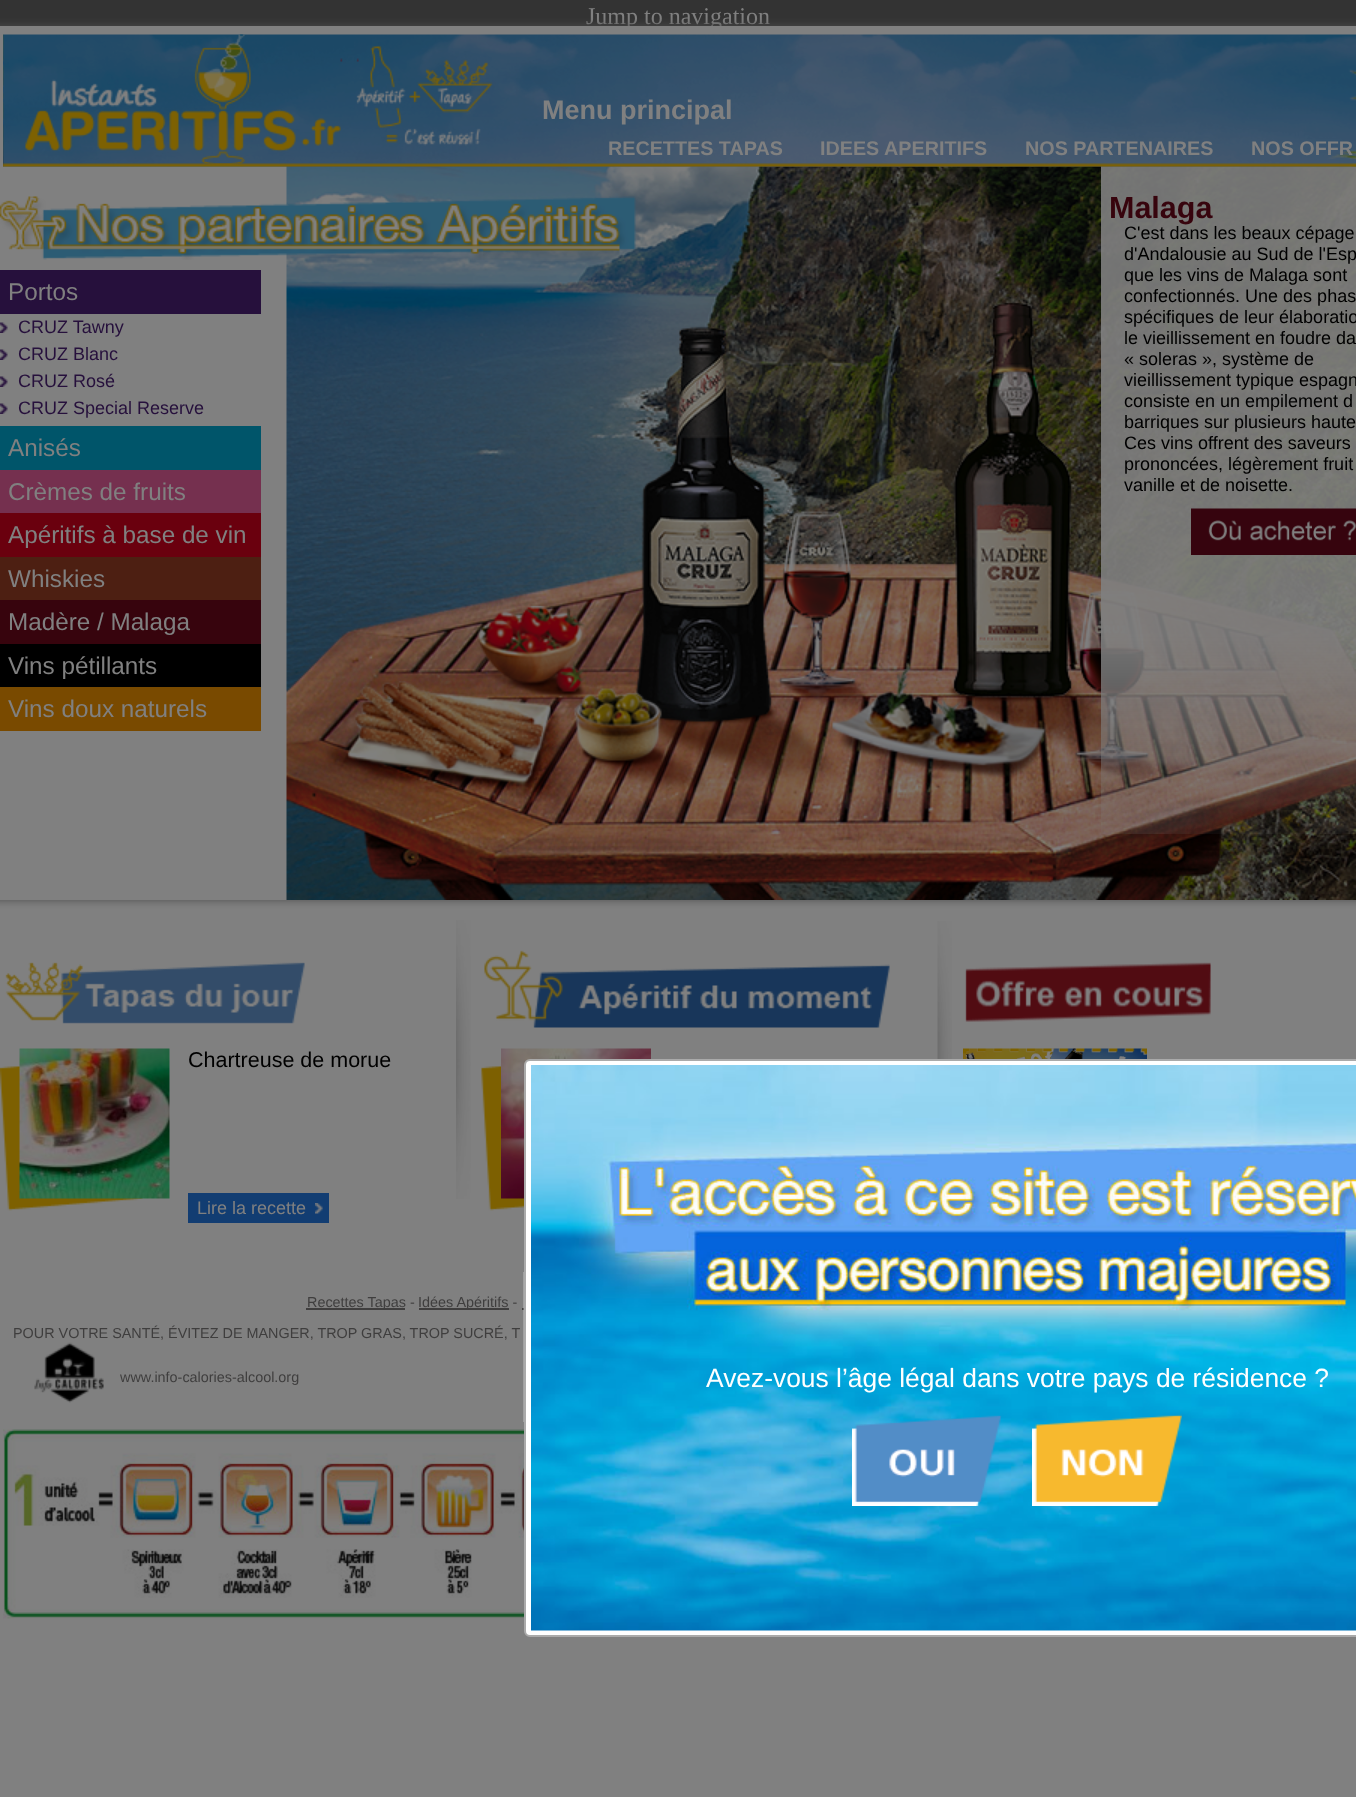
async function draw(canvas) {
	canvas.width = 1356;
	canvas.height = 1797;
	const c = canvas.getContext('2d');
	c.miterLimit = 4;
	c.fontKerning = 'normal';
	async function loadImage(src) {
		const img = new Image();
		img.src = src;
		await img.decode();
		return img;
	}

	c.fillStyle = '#808080';
	c.fillRect(0, 0, 1356, 1797);
	c.fillStyle = '#333';
	c.fillRect(0, 0, 1356, 26);
	c.font = '24px Liberation Serif';
	c.fillStyle = '#808080';
	c.fillText('Jump to navigation', 586, 24);
	c.fillStyle = '#4d4d4d';
	c.filter = 'blur(4.5px)';
	c.beginPath();
	c.rect(-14, 26, 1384, 874);
	c.fill();
	c.filter = 'none';
	c.fillStyle = '#808080';
	c.fillRect(0, 26, 1356, 874);
	c.drawImage(await loadImage('img5.png'), 286, 166, 1070, 734);
	c.drawImage(await loadImage('img6.png'), 1101, 166, 255, 668);
	c.drawImage(await loadImage('img1.png'), 3, 34, 1353, 133);
	c.drawImage(await loadImage('img3.png'), 3, 163, 1353, 4);
	c.drawImage(await loadImage('img2.png'), 25, 34, 468, 131);
	c.font = 'bold 27px Liberation Sans';
	c.fillText('Menu principal', 542, 119);
	c.font = 'bold 19.75px Liberation Sans';
	for (const [text, x, y] of [
		['RECETTES TAPAS', 608, 155],
		['IDEES APERITIFS', 820, 155],
		['NOS PARTENAIRES', 1025, 155],
		['NOS OFFR', 1251, 155],
	]) {
		c.fillText(text, x, y);
	}
	c.fillStyle = '#26103c';
	c.fillRect(0, 270, 261, 44);
	c.font = '24.25px Liberation Sans';
	c.fillStyle = '#808080';
	c.fillText('Portos', 8, 300);
	c.drawImage(await loadImage('img4.png'), 0, 322, 8, 11);
	c.font = '18px Liberation Sans';
	c.fillStyle = '#26103c';
	c.fillText('CRUZ Tawny', 18, 333);
	c.drawImage(await loadImage('img4.png'), 0, 349, 8, 11);
	c.fillText('CRUZ Blanc', 18, 360);
	c.drawImage(await loadImage('img4.png'), 0, 376, 8, 11);
	c.fillText('CRUZ Rosé', 18, 387);
	c.drawImage(await loadImage('img4.png'), 0, 403, 8, 11);
	c.fillText('CRUZ Special Reserve', 18, 414);
	c.fillStyle = '#00556a';
	c.fillRect(0, 426, 261, 44);
	c.font = '24.25px Liberation Sans';
	c.fillStyle = '#808080';
	c.fillText('Anisés', 8, 456);
	c.fillStyle = '#75304f';
	c.fillRect(0, 470, 261, 43);
	c.fillStyle = '#808080';
	c.fillText('Crèmes de fruits', 8, 500);
	c.fillStyle = '#6a000e';
	c.fillRect(0, 513, 261, 44);
	c.fillStyle = '#808080';
	c.fillText('Apéritifs à base de vin', 8, 543);
	c.fillStyle = '#4d1f12';
	c.fillRect(0, 557, 261, 43);
	c.fillStyle = '#808080';
	c.fillText('Whiskies', 8, 587);
	c.fillStyle = '#37040d';
	c.fillRect(0, 600, 261, 44);
	c.fillStyle = '#808080';
	c.fillText('Madère / Malaga', 8, 630);
	c.fillStyle = '#000';
	c.fillRect(0, 644, 261, 43);
	c.fillStyle = '#808080';
	c.fillText('Vins pétillants', 8, 674);
	c.fillStyle = '#794a00';
	c.fillRect(0, 687, 261, 44);
	c.fillStyle = '#808080';
	c.fillText('Vins doux naturels', 8, 717);
	c.font = 'bold 30.5px Liberation Sans';
	c.fillStyle = '#37040d';
	c.fillText('Malaga', 1109, 218);
	c.font = '18px Liberation Sans';
	c.fillStyle = '#000';
	for (const [text, x, y] of [
		['C\'est dans les beaux cépage', 1124, 239],
		['d\'Andalousie au Sud de l\'Esp', 1124, 260],
		['que les vins de Malaga sont', 1124, 281],
		['confectionnés. Une des phas', 1124, 302],
		['spécifiques de leur élaboratio', 1124, 323],
		['le vieillissement en foudre da', 1124, 344],
		['« soleras », système de', 1124, 365],
		['vieillissement typique espagn', 1124, 386],
		['consiste en un empilement d', 1124, 407],
		['barriques sur plusieurs haute', 1124, 428],
		['Ces vins offrent des saveurs', 1124, 449],
		['prononcées, légèrement fruit', 1124, 470],
		['vanille et de noisette.', 1124, 491],
	]) {
		c.fillText(text, x, y);
	}
	c.drawImage(await loadImage('img7.png'), 1191, 508, 165, 47);
	c.drawImage(await loadImage('img8.png'), 0, 196, 636, 64);
	c.drawImage(await loadImage('img9.png'), 937, 921, 15, 138);
	c.drawImage(await loadImage('img10.png'), 484, 950, 406, 78);
	c.drawImage(await loadImage('img11.png'), 481, 1054, 43, 157);
	c.drawImage(await loadImage('img12.png'), 501, 1048, 150, 151);
	c.drawImage(await loadImage('img13.png'), 965, 962, 246, 60);
	c.drawImage(await loadImage('img14.png'), 963, 1048, 184, 11);
	c.drawImage(await loadImage('img15.png'), 456, 920, 15, 279);
	c.drawImage(await loadImage('img16.png'), 5, 962, 300, 62);
	c.drawImage(await loadImage('img17.png'), 0, 1054, 143, 157);
	c.drawImage(await loadImage('img18.png'), 19, 1048, 151, 151);
	c.font = '21.5px Liberation Sans';
	c.fillText('Chartreuse de morue', 188, 1067);
	c.fillStyle = '#123d72';
	c.fillRect(188, 1193, 141, 30);
	c.drawImage(await loadImage('img19.png'), 315, 1203, 8, 11);
	c.font = '18px Liberation Sans';
	c.fillStyle = '#808080';
	c.fillText('Lire la recette', 197, 1214);
	c.fillStyle = '#3f3e3e';
	c.fillRect(306, 1308, 99, 2);
	c.font = '14.4px Liberation Sans';
	c.fillText('Recettes Tapas -', 307, 1307);
	c.fillRect(419, 1308, 90, 2);
	c.fillText('Idées Apéritifs -', 418, 1307);
	c.fillRect(522, 1308, 2, 2);
	c.fillText('POUR VOTRE SANTÉ, ÉVITEZ DE MANGER, TROP GRAS, TROP SUCRÉ, T', 13, 1338);
	c.drawImage(await loadImage('img20.png'), 34, 1342, 70, 61);
	c.fillText('www.info-calories-alcool.org', 120, 1382);
	c.drawImage(await loadImage('img21.png'), 3, 1429, 521, 190);
	c.fillStyle = '#fff';
	c.beginPath();
	c.roundRect(525, 1060, 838, 576, 5);
	c.fill();
	c.strokeStyle = '#aaa';
	c.lineWidth = 2;
	c.stroke();
	c.fillStyle = '#ffffff40';
	c.fillRect(523, 1272, 1, 150);
	c.drawImage(await loadImage('img22.png'), 531, 1065, 825, 566);
	c.font = '26.4px Liberation Sans';
	c.fillStyle = '#fff';
	c.fillText('Avez-vous l’âge légal dans votre pays de résidence ?', 706, 1387);
	c.drawImage(await loadImage('img23.png'), 852, 1415, 150, 91);
	c.drawImage(await loadImage('img24.png'), 1032, 1414, 150, 92);
}

draw(document.querySelector('canvas'));
